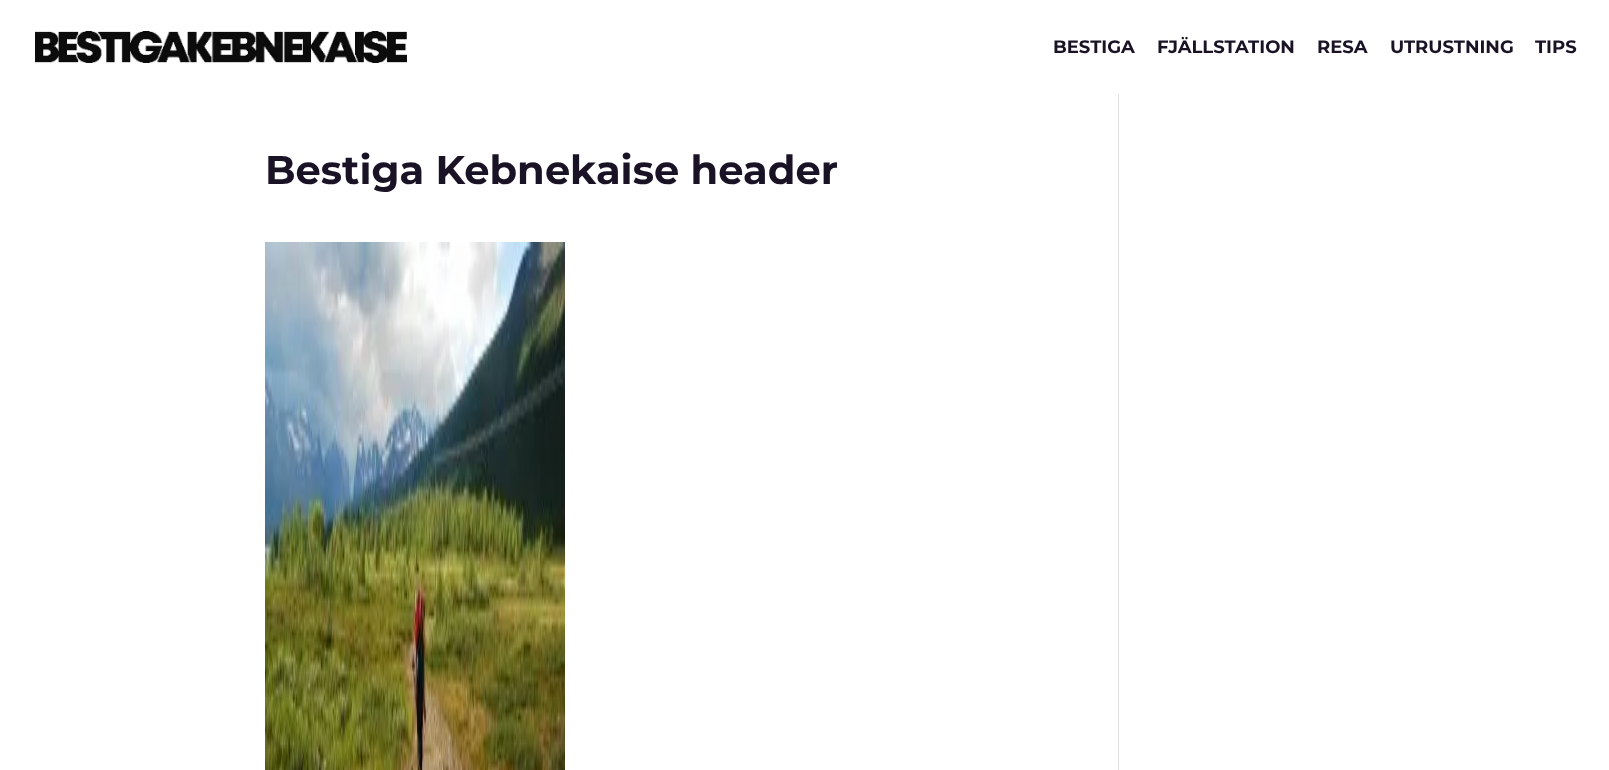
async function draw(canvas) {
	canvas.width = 1609;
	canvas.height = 770;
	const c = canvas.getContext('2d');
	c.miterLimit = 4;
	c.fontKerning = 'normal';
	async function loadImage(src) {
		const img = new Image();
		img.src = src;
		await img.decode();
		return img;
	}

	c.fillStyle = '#fff';
	c.fillRect(0, 0, 1609, 770);
	c.drawImage(await loadImage('img1.png'), 35, 31, 372, 32);
	c.font = '100 18px Montserrat';
	c.fillStyle = '#1a1225';
	for (const [text, x, y] of [
		['BESTIGA', 1053, 53],
		['FJÄLLSTATION', 1157, 53],
		['RESA', 1317, 53],
		['UTRUSTNING', 1390, 53],
		['TIPS', 1535, 53],
	]) {
		c.fillText(text, x, y);
	}
	c.font = '100 40px Montserrat';
	c.fillText('Bestiga Kebnekaise header', 265, 184);
	c.drawImage(await loadImage('img2.png'), 265, 242, 300, 528);
	c.fillStyle = '#e2e2e2';
	c.fillRect(1118, 94, 1, 676);
}

draw(document.querySelector('canvas'));
